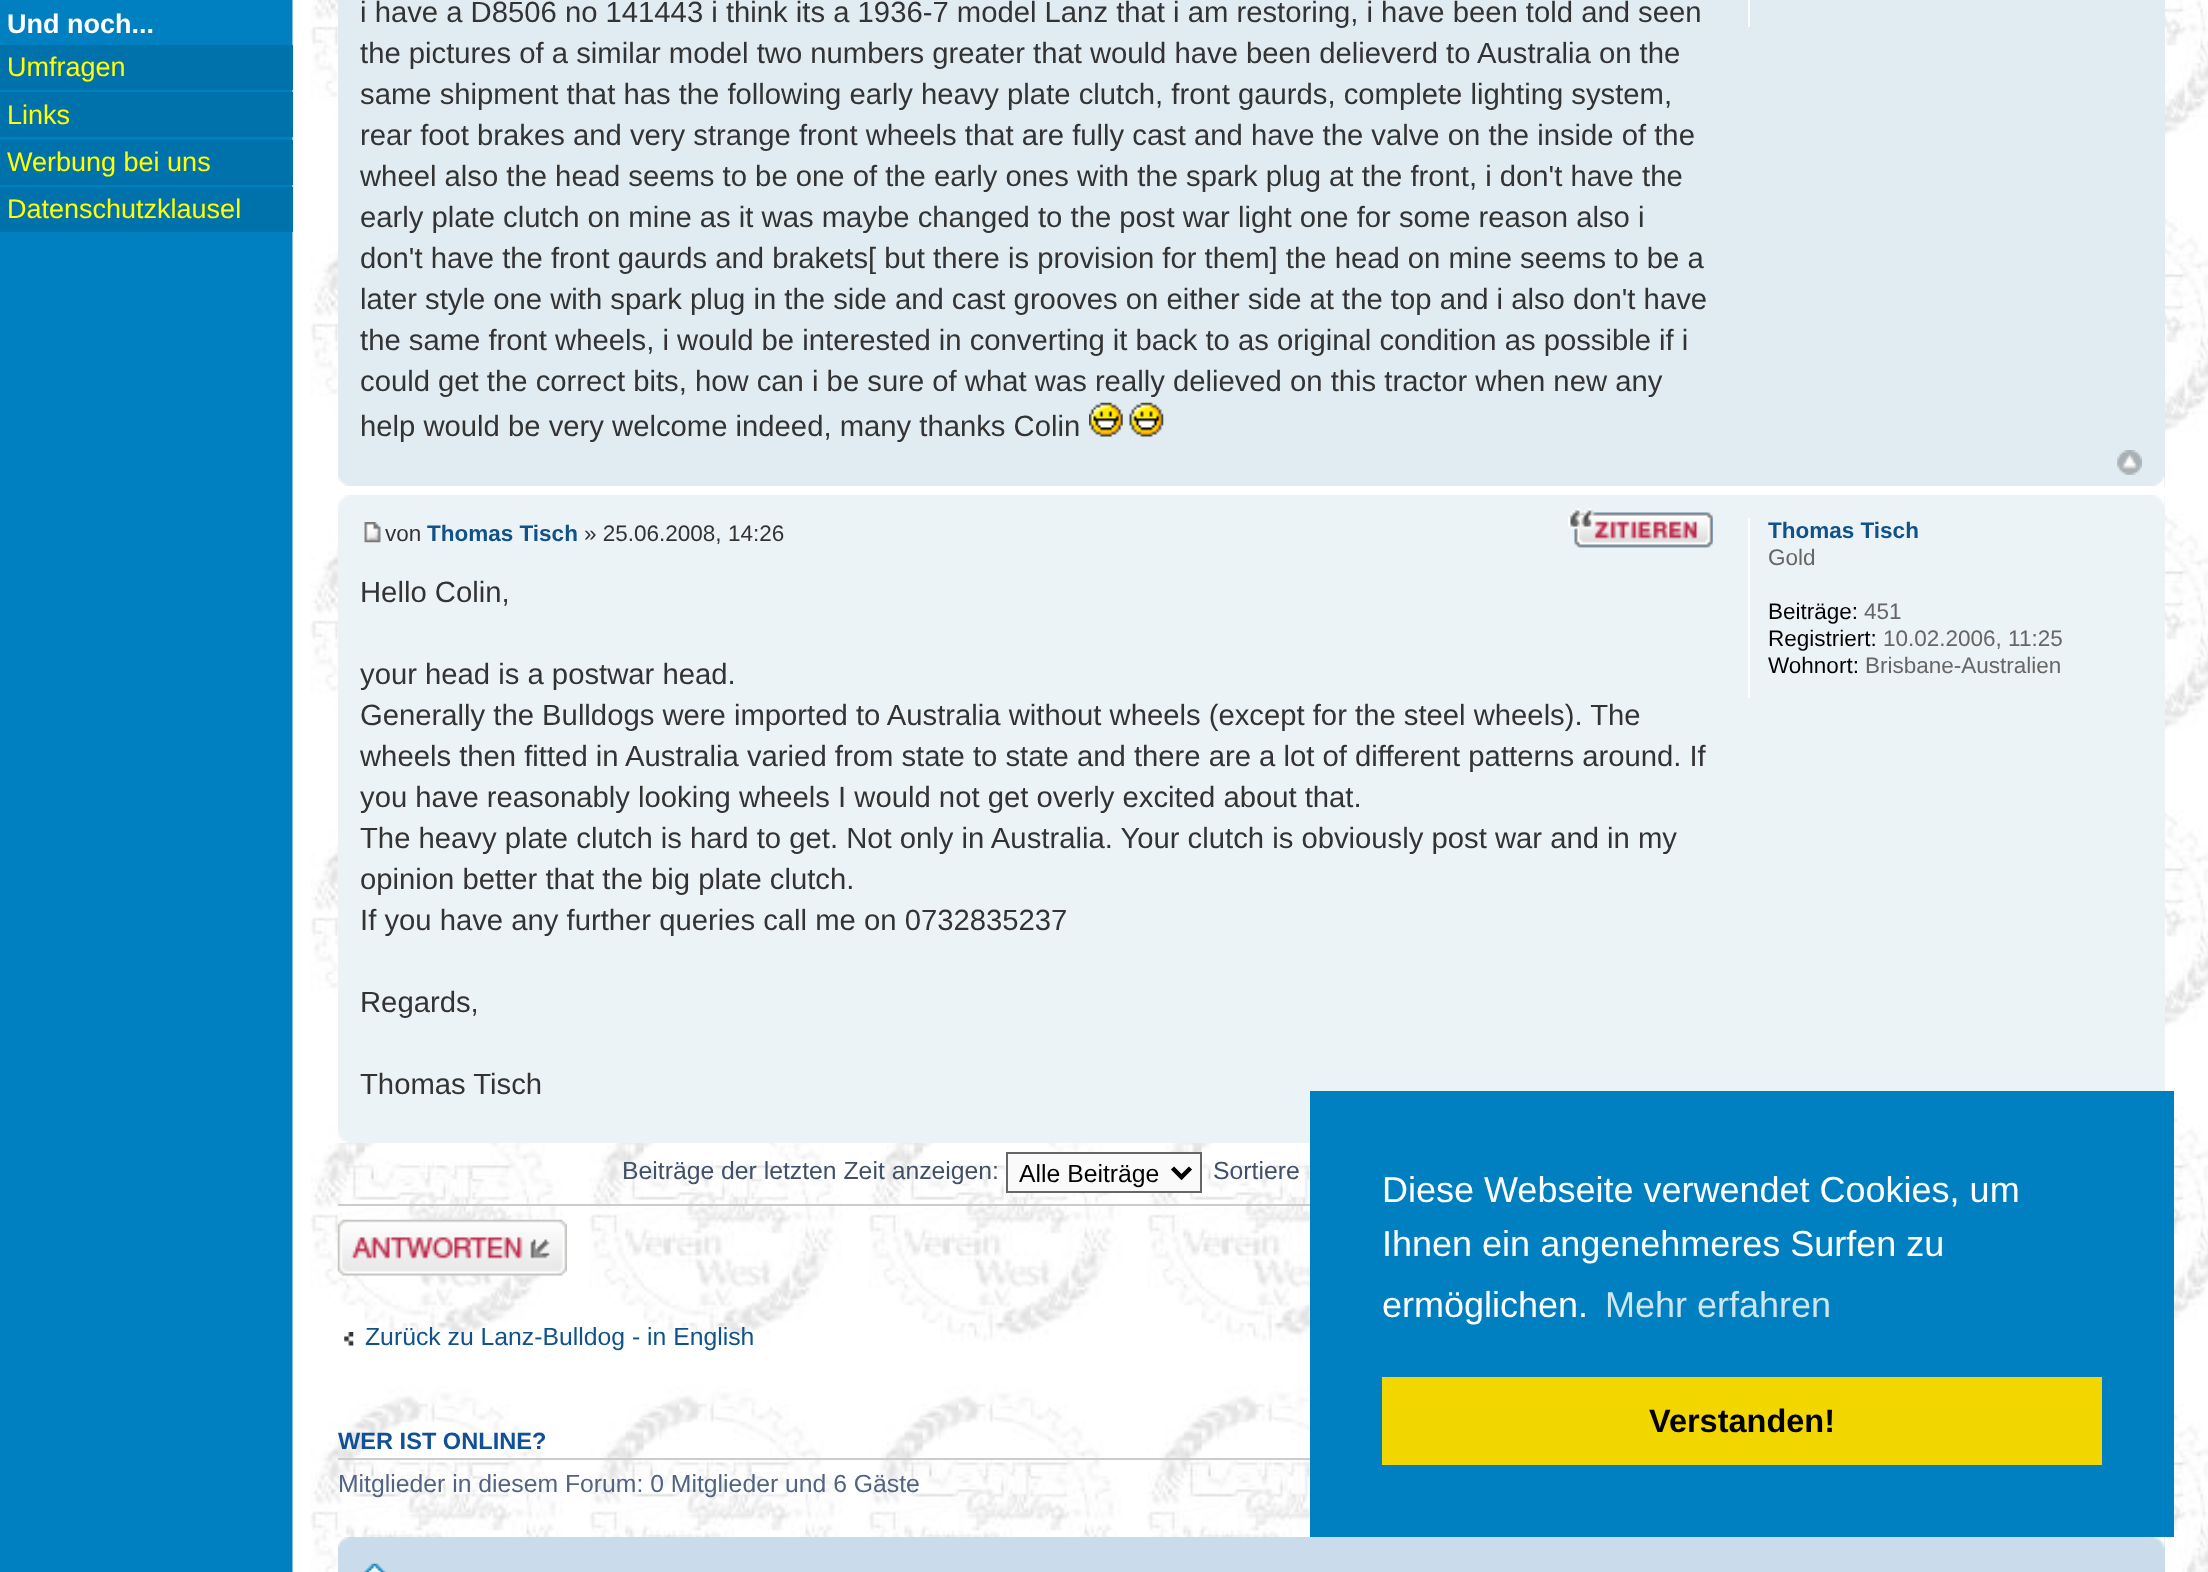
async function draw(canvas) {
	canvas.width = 2208;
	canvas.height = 1572;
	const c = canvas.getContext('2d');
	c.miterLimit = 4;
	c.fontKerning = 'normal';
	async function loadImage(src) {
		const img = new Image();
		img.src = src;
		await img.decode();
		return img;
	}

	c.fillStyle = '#0080c0';
	c.fillRect(0, 0, 2208, 1572);
	c.font = 'bold 27px Liberation Sans';
	c.fillStyle = '#fff';
	c.fillText('Und noch...', 7, 33);
	c.drawImage(await loadImage('img1.png'), 292, 0, 1916, 1572);
	c.fillStyle = '#0072ab';
	c.fillRect(0, 45, 293, 45);
	c.font = '27px Liberation Sans';
	c.fillStyle = '#ff0';
	c.fillText('Umfragen', 7, 76);
	c.fillStyle = '#0072ab';
	c.fillRect(0, 92, 293, 45);
	c.fillStyle = '#ff0';
	c.fillText('Links', 7, 124);
	c.fillStyle = '#0072ab';
	c.fillRect(0, 140, 293, 45);
	c.fillStyle = '#ff0';
	c.fillText('Werbung bei uns', 7, 171);
	c.fillStyle = '#0072ab';
	c.fillRect(0, 187, 293, 45);
	c.fillStyle = '#ff0';
	c.fillText('Datenschutzklausel', 7, 218);
	c.fillStyle = '#e1ebf2';
	c.fillRect(338, 0, 1827, 486);
	c.font = '29.25px Liberation Sans';
	c.fillStyle = '#333';
	for (const [text, x, y] of [
		['i have a D8506 no 141443 i think its a 1936-7 model Lanz that i am restoring, i have been told and seen', 360, 22],
		['the pictures of a similar model two numbers greater that would have been delieverd to Australia on the', 360, 63],
		['same shipment that has the following early heavy plate clutch, front gaurds, complete lighting system,', 360, 104],
		['rear foot brakes and very strange front wheels that are fully cast and have the valve on the inside of the', 360, 145],
		['wheel also the head seems to be one of the early ones with the spark plug at the front, i don\'t have the', 360, 186],
		['early plate clutch on mine as it was maybe changed to the post war light one for some reason also i', 360, 227],
		['don\'t have the front gaurds and brakets[ but there is provision for them] the head on mine seems to be a', 360, 268],
		['later style one with spark plug in the side and cast grooves on either side at the top and i also don\'t have', 360, 309],
		['the same front wheels, i would be interested in converting it back to as original condition as possible if i', 360, 350],
		['could get the correct bits, how can i be sure of what was really delieved on this tractor when new any', 360, 391],
		['help would be very welcome indeed, many thanks Colin', 360, 436],
	]) {
		c.fillText(text, x, y);
	}
	c.drawImage(await loadImage('img2.png'), 1089, 402, 34, 35);
	c.drawImage(await loadImage('img3.png'), 1129, 402, 35, 35);
	c.fillStyle = '#fff';
	c.fillRect(1748, 0, 2, 27);
	c.drawImage(await loadImage('img4.png'), 2117, 450, 25, 25);
	c.drawImage(await loadImage('img5.png'), 338, 475, 11, 11);
	c.drawImage(await loadImage('img6.png'), 2154, 475, 11, 11);
	c.fillStyle = '#ecf3f7';
	c.fillRect(338, 495, 1827, 648);
	c.drawImage(await loadImage('img7.png'), 338, 495, 10, 11);
	c.drawImage(await loadImage('img8.png'), 2154, 495, 11, 11);
	c.drawImage(await loadImage('img9.png'), 364, 522, 17, 21);
	c.font = '22.5px Liberation Sans';
	c.fillStyle = '#333';
	c.fillText('von', 385, 541);
	c.font = 'bold 22.5px Liberation Sans';
	c.fillStyle = '#105289';
	c.fillText('Thomas Tisch', 427, 541);
	c.font = '22.5px Liberation Sans';
	c.fillStyle = '#333';
	c.fillText('» 25.06.2008, 14:26', 584, 541);
	c.drawImage(await loadImage('img10.png'), 1568, 508, 145, 40);
	c.drawImage(await loadImage('img11.png'), 1568, 508, 145, 40);
	c.font = '29.25px Liberation Sans';
	for (const [text, x, y] of [
		['Hello Colin,', 360, 602],
		['your head is a postwar head.', 360, 684],
		['Generally the Bulldogs were imported to Australia without wheels (except for the steel wheels). The', 360, 725],
		['wheels then fitted in Australia varied from state to state and there are a lot of different patterns around. If', 360, 766],
		['you have reasonably looking wheels I would not get overly excited about that.', 360, 807],
		['The heavy plate clutch is hard to get. Not only in Australia. Your clutch is obviously post war and in my', 360, 848],
		['opinion better that the big plate clutch.', 360, 889],
		['If you have any further queries call me on 0732835237', 360, 930],
		['Regards,', 360, 1012],
		['Thomas Tisch', 360, 1094],
	]) {
		c.fillText(text, x, y);
	}
	c.fillStyle = '#fff';
	c.fillRect(1748, 518, 2, 180);
	c.font = 'bold 22.5px Liberation Sans';
	c.fillStyle = '#105289';
	c.fillText('Thomas Tisch', 1768, 538);
	c.font = '22.5px Liberation Sans';
	c.fillStyle = '#666';
	c.fillText('Gold', 1768, 565);
	c.fillStyle = '#000';
	c.fillText('Beiträge:', 1768, 619);
	c.fillStyle = '#666';
	c.fillText('451', 1864, 619);
	c.fillStyle = '#000';
	c.fillText('Registriert:', 1768, 646);
	c.fillStyle = '#666';
	c.fillText('10.02.2006, 11:25', 1883, 646);
	c.fillStyle = '#000';
	c.fillText('Wohnort:', 1768, 673);
	c.fillStyle = '#666';
	c.fillText('Brisbane-Australien', 1865, 673);
	c.drawImage(await loadImage('img12.png'), 338, 1132, 10, 11);
	c.font = '24.75px Liberation Sans';
	c.fillStyle = '#425067';
	c.fillText('Beiträge der letzten Zeit anzeigen:', 622, 1179);
	c.fillStyle = '#fafafa';
	c.beginPath();
	c.rect(1007, 1153, 194, 39);
	c.fill();
	c.strokeStyle = '#666';
	c.lineWidth = 2;
	c.stroke();
	c.beginPath();
	c.moveTo(1172.5, 1168);
	c.lineTo(1181.5, 1177);
	c.lineTo(1190.5, 1168);
	c.strokeStyle = '#000';
	c.lineWidth = 4.5;
	c.stroke();
	c.fillStyle = '#000';
	c.fillText('Alle Beiträge', 1019, 1182);
	c.fillStyle = '#425067';
	c.fillText('Sortiere', 1213, 1179);
	c.fillStyle = '#ccc';
	c.fillRect(338, 1204, 972, 2);
	c.drawImage(await loadImage('img13.png'), 337, 1219, 230, 57);
	c.drawImage(await loadImage('img14.png'), 344, 1332, 10, 14);
	c.fillStyle = '#105289';
	c.fillText('Zurück zu Lanz-Bulldog - in English', 365, 1345);
	c.fillStyle = '#ccc';
	c.fillRect(338, 1458, 972, 2);
	c.font = 'bold 23.6px Liberation Sans';
	c.fillStyle = '#115098';
	c.fillText('WER IST ONLINE?', 338, 1449);
	c.font = '24.75px Liberation Sans';
	c.fillStyle = '#536482';
	c.fillText('Mitglieder in diesem Forum: 0 Mitglieder und 6 Gäste', 338, 1492);
	c.fillStyle = '#cadceb';
	c.fillRect(338, 1537, 1827, 35);
	c.drawImage(await loadImage('img15.png'), 337, 1537, 12, 11);
	c.drawImage(await loadImage('img16.png'), 2153, 1537, 12, 11);
	c.drawImage(await loadImage('img17.png'), 364, 1563, 22, 9);
	c.fillStyle = '#0080c0';
	c.fillRect(1310, 1091, 864, 446);
	c.font = '36px Liberation Sans';
	c.fillStyle = '#fff';
	for (const [text, x, y] of [
		['Diese Webseite verwendet Cookies, um', 1382, 1202],
		['Ihnen ein angenehmeres Surfen zu', 1382, 1256],
		['ermöglichen.', 1382, 1317],
	]) {
		c.fillText(text, x, y);
	}
	c.fillStyle = '#cce6f2';
	c.fillText('Mehr erfahren', 1605, 1317);
	c.fillStyle = '#f1d600';
	c.fillRect(1382, 1377, 720, 88);
	c.font = 'bold 32.5px Liberation Sans';
	c.fillStyle = '#000';
	c.fillText('Verstanden!', 1649, 1432);
}

draw(document.querySelector('canvas'));
